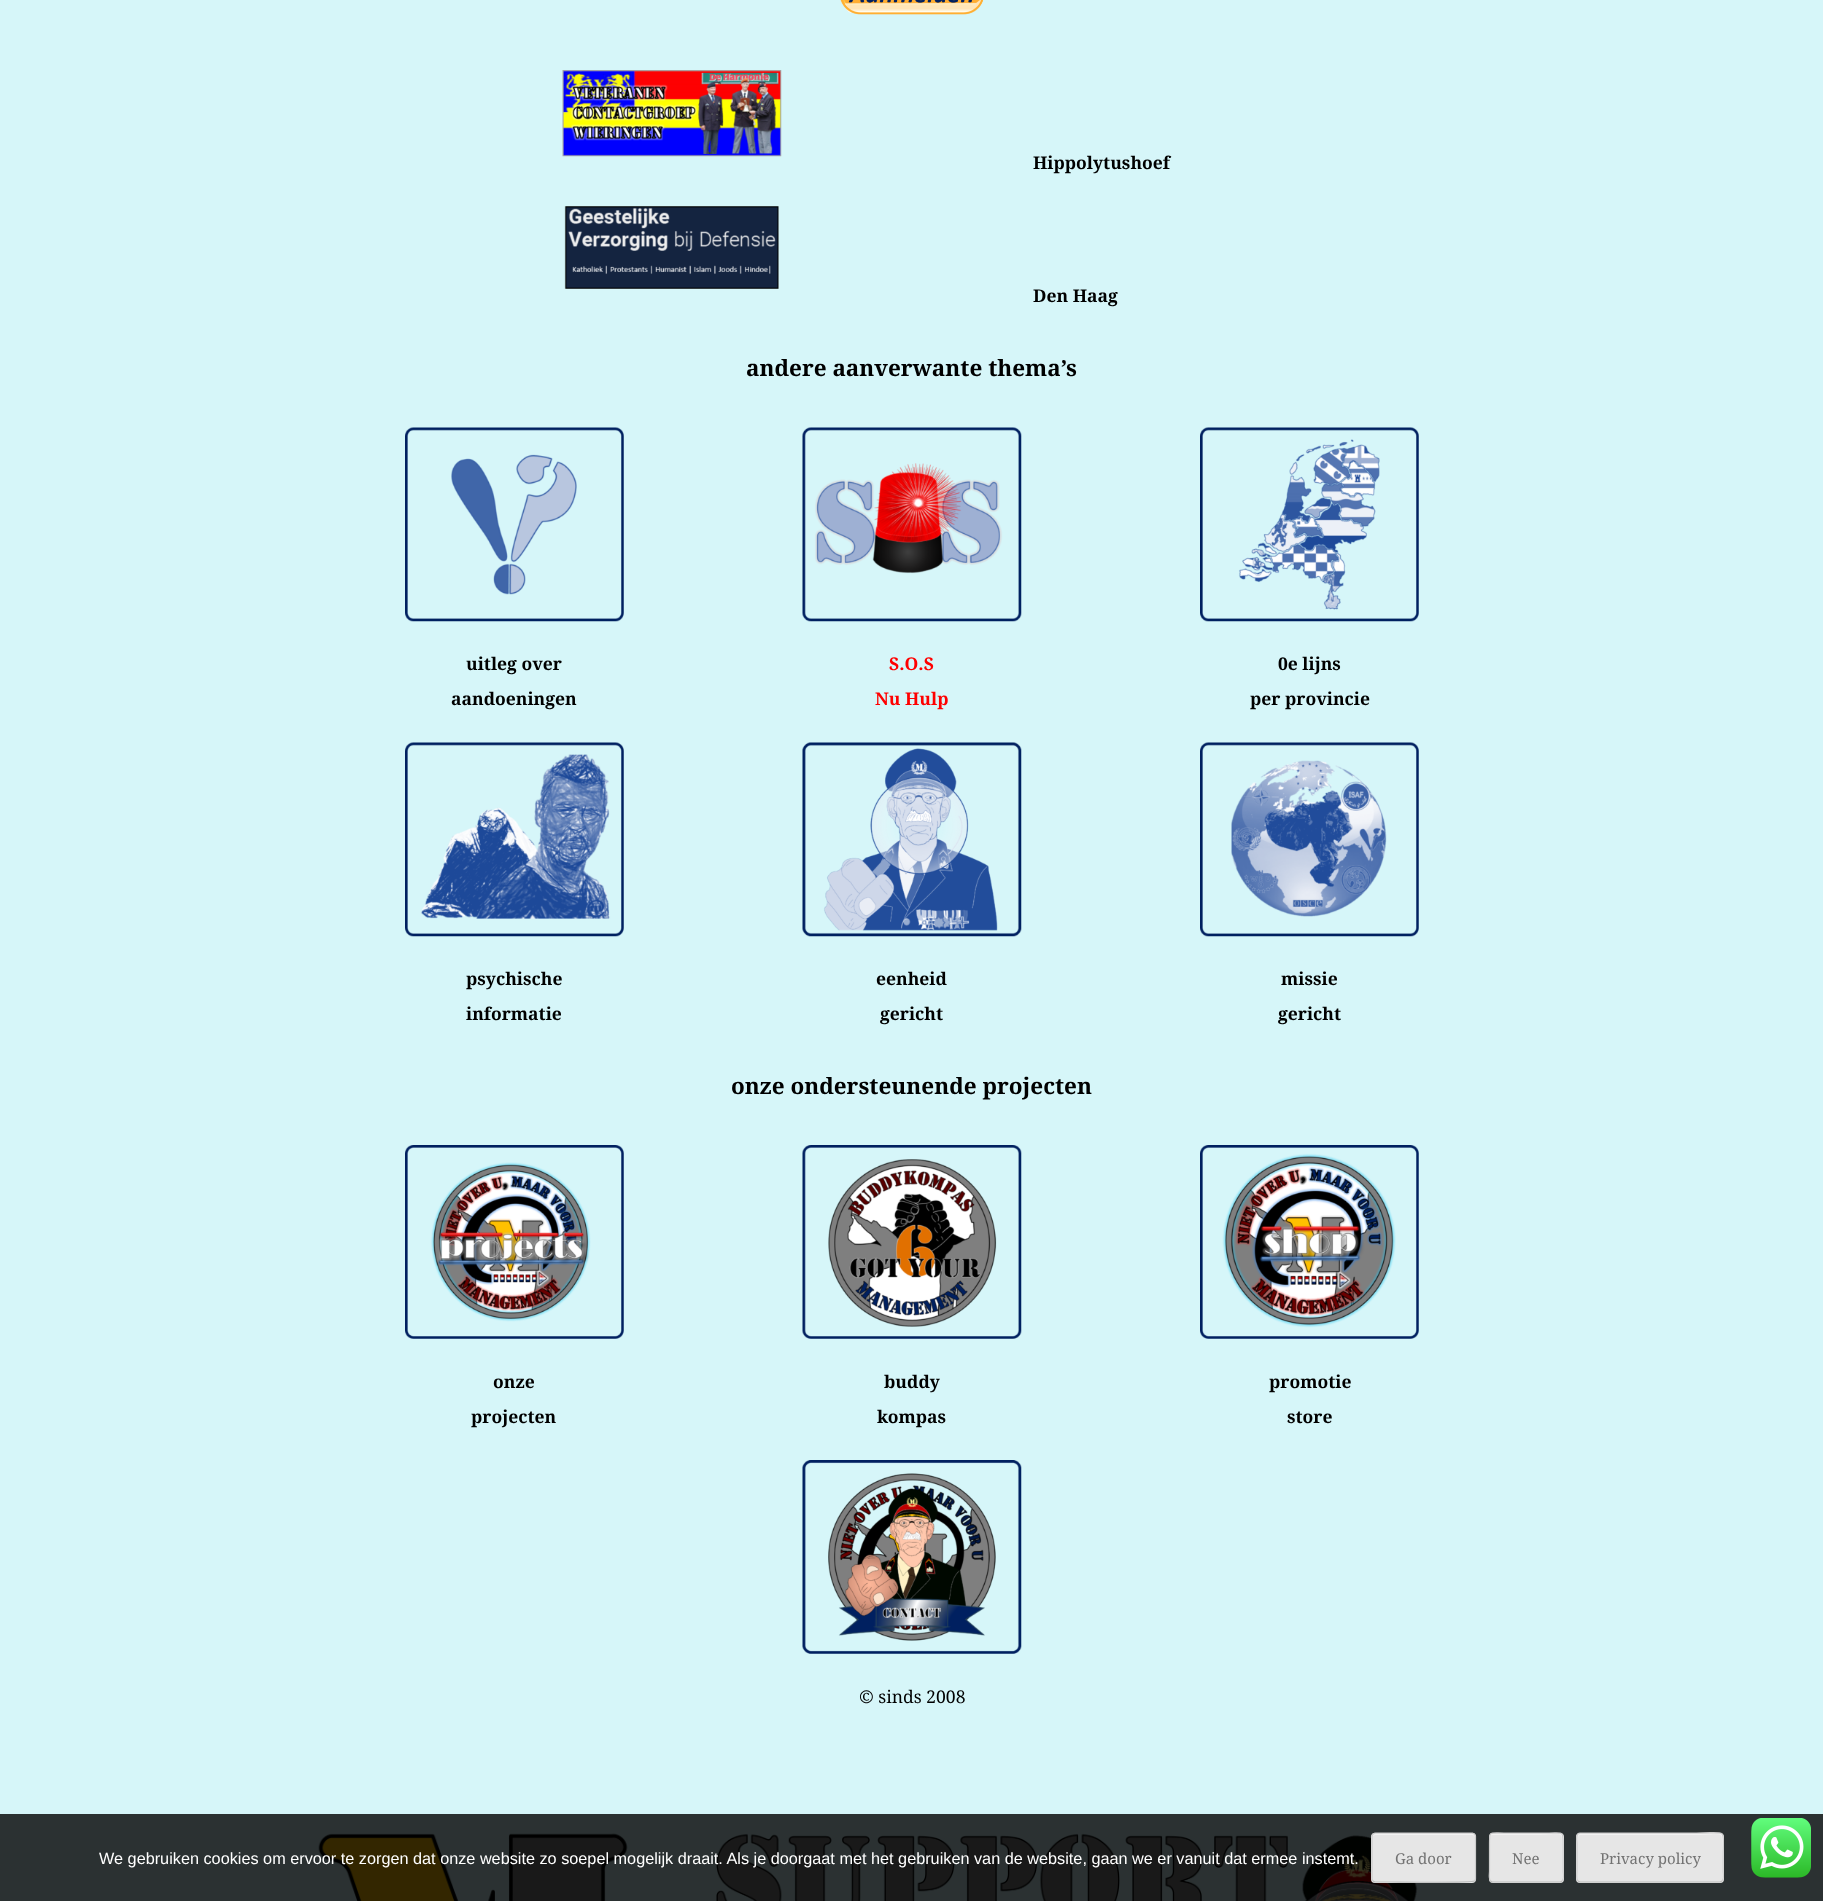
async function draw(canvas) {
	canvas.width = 1823;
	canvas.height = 1901;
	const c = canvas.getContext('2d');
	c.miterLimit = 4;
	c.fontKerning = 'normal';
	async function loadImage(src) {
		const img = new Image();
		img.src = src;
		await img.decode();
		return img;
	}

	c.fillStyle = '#d6f6f9';
	c.fillRect(0, 0, 1823, 1901);
	c.fillStyle = '#2b3132';
	c.fillRect(0, 1814, 1823, 87);
	c.drawImage(await loadImage('img1.png'), 840, 0, 144, 15);
	c.drawImage(await loadImage('img2.png'), 562, 70, 220, 87);
	c.font = 'bold 17.5px Droid Serif';
	c.fillStyle = '#000';
	c.fillText('Hippolytushoef', 1033, 169);
	c.drawImage(await loadImage('img3.png'), 564, 206, 215, 83);
	c.fillText('Den Haag', 1033, 302);
	c.font = 'bold 22.5px Droid Serif';
	c.fillText('andere aanverwante thema’s', 746, 376);
	c.drawImage(await loadImage('img4.png'), 405, 427, 219, 195);
	c.drawImage(await loadImage('img5.png'), 802, 427, 220, 195);
	c.drawImage(await loadImage('img6.png'), 1200, 427, 219, 195);
	c.font = 'bold 17.5px Droid Serif';
	c.fillText('uitleg over', 466, 670);
	c.fillText('aandoeningen', 451, 705);
	c.fillStyle = '#f00';
	c.fillText('S.O.S', 889, 670);
	c.fillText('Nu Hulp', 875, 705);
	c.fillStyle = '#000';
	c.fillText('0e lijns', 1278, 670);
	c.fillText('per provincie', 1250, 705);
	c.drawImage(await loadImage('img7.png'), 405, 742, 219, 195);
	c.drawImage(await loadImage('img8.png'), 802, 742, 220, 195);
	c.drawImage(await loadImage('img9.png'), 1200, 742, 219, 195);
	for (const [text, x, y] of [
		['psychische', 466, 985],
		['informatie', 466, 1020],
		['eenheid', 876, 985],
		['gericht', 880, 1020],
		['missie', 1281, 985],
		['gericht', 1278, 1020],
	]) {
		c.fillText(text, x, y);
	}
	c.font = 'bold 22.5px Droid Serif';
	c.fillText('onze ondersteunende projecten', 731, 1094);
	c.drawImage(await loadImage('img10.png'), 405, 1145, 219, 194);
	c.drawImage(await loadImage('img11.png'), 802, 1145, 220, 194);
	c.drawImage(await loadImage('img12.png'), 1200, 1145, 219, 194);
	c.font = 'bold 17.5px Droid Serif';
	for (const [text, x, y] of [
		['onze', 493, 1388],
		['projecten', 471, 1423],
		['buddy', 884, 1388],
		['kompas', 877, 1423],
		['promotie', 1269, 1388],
		['store', 1287, 1423],
	]) {
		c.fillText(text, x, y);
	}
	c.drawImage(await loadImage('img13.png'), 802, 1460, 220, 194);
	c.font = '17.5px Droid Serif';
	c.fillText('© sinds 2008', 859, 1703);
	c.drawImage(await loadImage('img14.png'), 318, 1833, 1100, 68);
	c.font = '16.25px Liberation Sans';
	c.fillStyle = '#fff';
	c.fillText('We gebruiken cookies om ervoor te zorgen dat onze website zo soepel mogelijk draait. Als je doorgaat met het gebruiken van de website, gaan we er vanuit dat ermee instemt.', 99, 1864);
	c.fillStyle = '#e6e6e6';
	c.beginPath();
	c.roundRect(1371, 1833, 105, 50, 4);
	c.fill();
	c.fillStyle = '#f3f3f3';
	c.beginPath();
	c.moveTo(1375, 1835);
	c.lineTo(1472, 1835);
	c.bezierCurveTo(1474, 1835, 1475, 1836, 1475, 1838);
	c.lineTo(1475, 1836);
	c.bezierCurveTo(1475, 1835, 1474, 1834, 1472, 1834);
	c.lineTo(1376, 1834);
	c.bezierCurveTo(1374, 1834, 1373, 1835, 1373, 1836);
	c.closePath();
	c.fill();
	c.beginPath();
	c.moveTo(1474.5, 1881);
	c.bezierCurveTo(1472.5, 1883, 1400, 1882, 1391, 1882);
	c.lineTo(1375, 1882);
	c.lineTo(1373, 1881);
	c.strokeStyle = '#bbb';
	c.lineWidth = 1.2;
	c.stroke();
	c.beginPath();
	c.moveTo(1373, 1881);
	c.lineTo(1372, 1879);
	c.lineTo(1372, 1836);
	c.lineTo(1373, 1834);
	c.lineTo(1375, 1833);
	c.lineTo(1472.5, 1833);
	c.lineTo(1474.5, 1834);
	c.lineTo(1475.5, 1836);
	c.lineTo(1475.5, 1879);
	c.lineTo(1474.5, 1881);
	c.strokeStyle = '#ccc';
	c.stroke();
	c.font = '15px Droid Serif';
	c.fillStyle = '#737373';
	c.fillText('Ga door', 1395, 1864);
	c.fillStyle = '#e6e6e6';
	c.beginPath();
	c.roundRect(1489, 1833, 75, 50, 4);
	c.fill();
	c.fillStyle = '#f3f3f3';
	c.beginPath();
	c.moveTo(1492, 1835);
	c.lineTo(1537, 1835);
	c.bezierCurveTo(1565, 1835, 1562, 1829, 1562, 1852);
	c.lineTo(1562, 1881);
	c.bezierCurveTo(1563, 1880, 1563, 1879, 1563, 1878);
	c.lineTo(1563, 1836);
	c.bezierCurveTo(1563, 1835, 1562, 1834, 1560, 1834);
	c.lineTo(1492, 1834);
	c.bezierCurveTo(1491, 1834, 1490, 1835, 1490, 1836);
	c.lineTo(1490, 1838);
	c.bezierCurveTo(1490, 1836, 1491, 1835, 1492, 1835);
	c.closePath();
	c.fill();
	c.beginPath();
	c.moveTo(1562, 1881);
	c.lineTo(1560.5, 1882);
	c.lineTo(1492, 1882);
	c.lineTo(1490.5, 1881);
	c.strokeStyle = '#bbb';
	c.stroke();
	c.beginPath();
	c.moveTo(1490.5, 1881);
	c.bezierCurveTo(1488.5, 1879, 1489.5, 1872.5, 1489.5, 1871.5);
	c.lineTo(1489.5, 1843.5);
	c.bezierCurveTo(1489.5, 1830.5, 1489.5, 1833, 1504, 1833);
	c.lineTo(1549, 1833);
	c.bezierCurveTo(1563, 1833, 1563, 1830.5, 1563, 1843.5);
	c.lineTo(1563, 1871.5);
	c.bezierCurveTo(1563, 1872.5, 1564, 1879, 1562, 1881);
	c.strokeStyle = '#ccc';
	c.stroke();
	c.fillStyle = '#737373';
	c.fillText('Nee', 1512, 1864);
	c.fillStyle = '#e6e6e6';
	c.beginPath();
	c.roundRect(1576, 1833, 148, 50, 4);
	c.fill();
	c.fillStyle = '#f3f3f3';
	c.beginPath();
	c.moveTo(1580, 1835);
	c.lineTo(1697, 1835);
	c.bezierCurveTo(1725, 1835, 1722, 1829, 1722, 1852);
	c.lineTo(1722, 1881);
	c.bezierCurveTo(1723, 1880, 1723, 1879, 1723, 1878);
	c.lineTo(1723, 1836);
	c.bezierCurveTo(1723, 1835, 1722, 1834, 1720, 1834);
	c.lineTo(1580, 1834);
	c.bezierCurveTo(1579, 1834, 1578, 1835, 1578, 1836);
	c.lineTo(1578, 1838);
	c.bezierCurveTo(1578, 1836, 1579, 1835, 1580, 1835);
	c.closePath();
	c.fill();
	c.beginPath();
	c.moveTo(1722, 1881);
	c.lineTo(1720, 1882);
	c.lineTo(1580, 1882);
	c.lineTo(1578, 1881);
	c.strokeStyle = '#bbb';
	c.stroke();
	c.beginPath();
	c.moveTo(1578, 1881);
	c.bezierCurveTo(1576, 1879, 1577, 1872.5, 1577, 1871.5);
	c.lineTo(1577, 1843.5);
	c.bezierCurveTo(1577, 1841.5, 1575, 1833, 1580, 1833);
	c.lineTo(1696.5, 1833);
	c.bezierCurveTo(1729, 1833, 1723, 1827, 1723, 1857.5);
	c.lineTo(1723, 1871.5);
	c.bezierCurveTo(1723, 1872.5, 1724, 1879, 1722, 1881);
	c.strokeStyle = '#ccc';
	c.stroke();
	c.fillStyle = '#737373';
	c.fillText('Privacy policy', 1600, 1864);
	c.drawImage(await loadImage('img15.png'), 1751, 1818, 60, 60);
}

draw(document.querySelector('canvas'));
